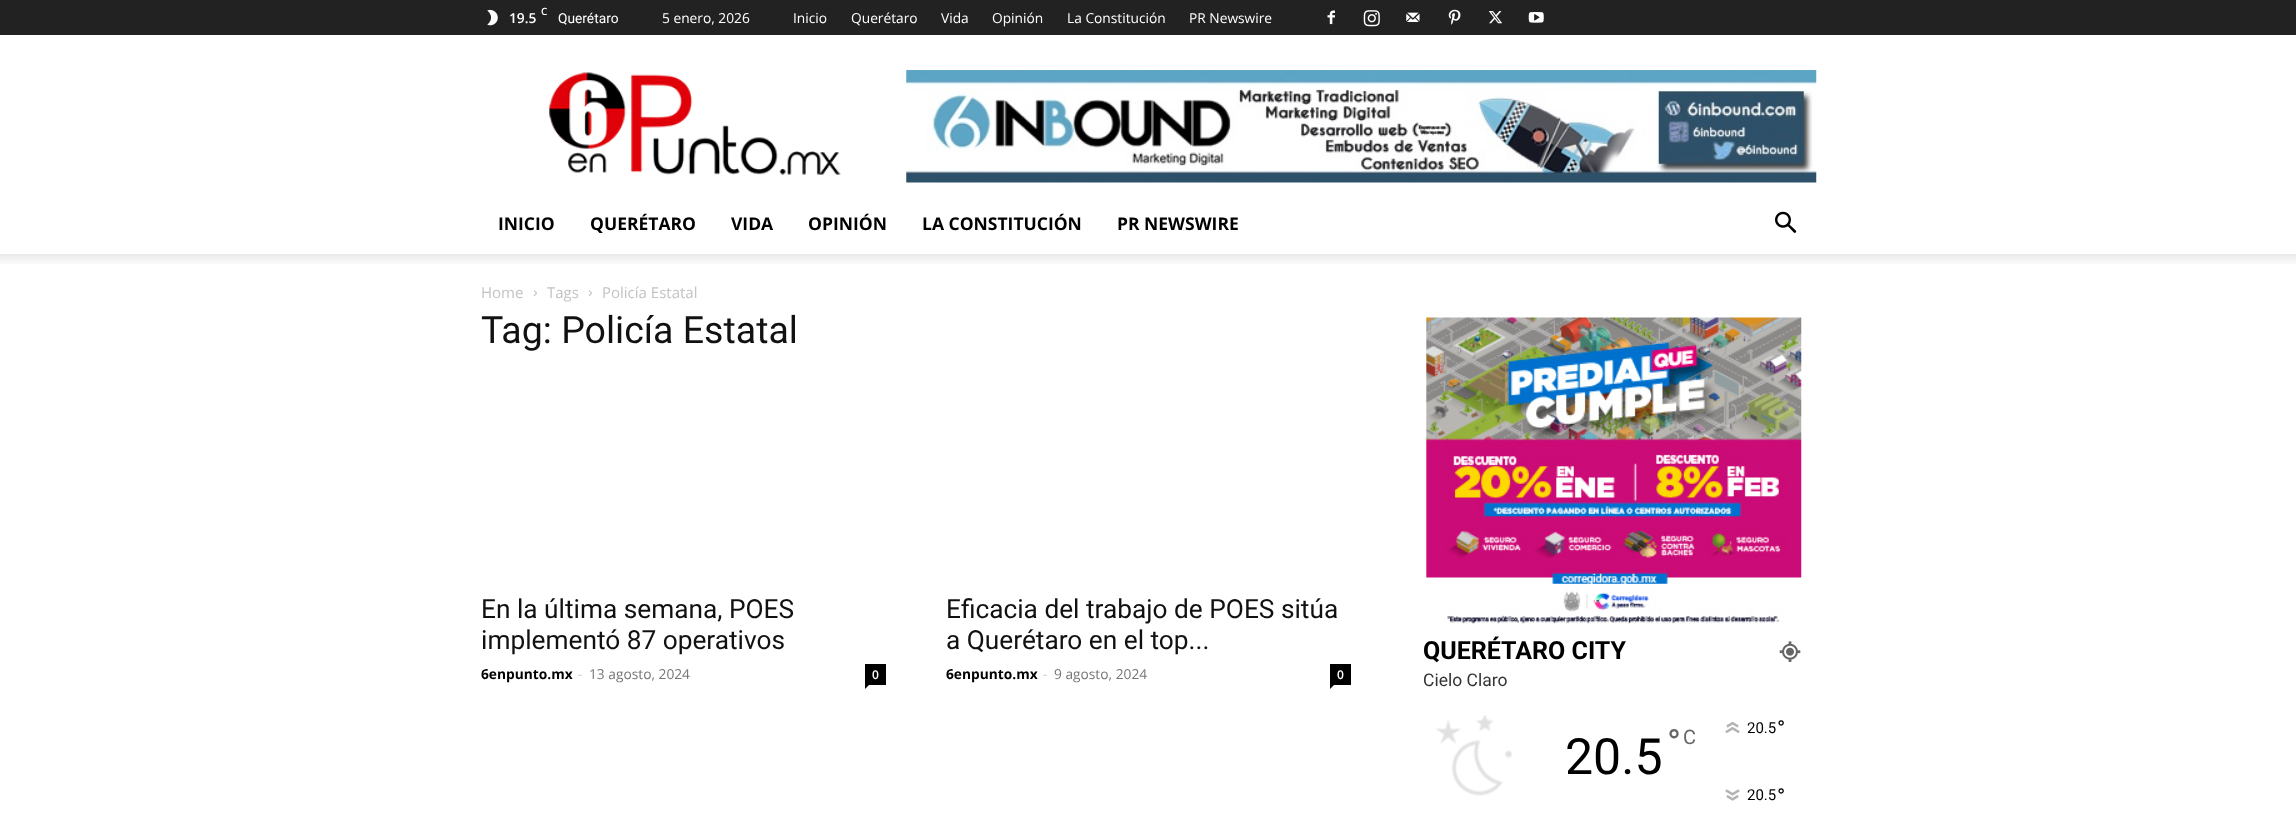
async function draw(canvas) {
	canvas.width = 2296;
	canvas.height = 828;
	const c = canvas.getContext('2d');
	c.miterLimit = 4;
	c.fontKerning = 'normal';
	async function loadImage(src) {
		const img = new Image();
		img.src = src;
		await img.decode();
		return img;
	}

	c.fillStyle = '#fff';
	c.fillRect(0, 0, 2296, 828);
	c.fillStyle = '#222';
	c.fillRect(0, 0, 2296, 35);
	c.drawImage(await loadImage('img1.png'), 487, 9, 11, 17);
	c.font = '600 10px Open Sans';
	c.fillStyle = '#fff';
	c.fillText('C', 541, 15);
	c.font = '600 13.75px Open Sans';
	c.fillText('19.5', 509, 23);
	c.font = '13.75px Roboto';
	c.fillText('Querétaro', 558, 23);
	c.font = '13.75px Open Sans';
	for (const [text, x, y] of [
		['5 enero, 2026', 662, 23],
		['Inicio', 793, 23],
		['Querétaro', 851, 23],
		['Vida', 941, 23],
		['Opinión', 992, 23],
		['La Constitución', 1067, 23],
		['PR Newswire', 1189, 23],
	]) {
		c.fillText(text, x, y);
	}
	c.drawImage(await loadImage('img2.png'), 1327, 10, 8, 15);
	c.drawImage(await loadImage('img3.png'), 1363, 10, 17, 17);
	c.drawImage(await loadImage('img4.png'), 1406, 12, 14, 10);
	c.drawImage(await loadImage('img5.png'), 1448, 9, 13, 16);
	c.drawImage(await loadImage('img6.png'), 1488, 11, 15, 13);
	c.drawImage(await loadImage('img7.png'), 1528, 12, 16, 11);
	c.drawImage(await loadImage('img8.png'), 549, 72, 292, 103);
	c.drawImage(await loadImage('img9.png'), 906, 70, 911, 113);
	c.font = 'bold 17.5px Open Sans';
	c.fillStyle = '#000';
	for (const [text, x, y] of [
		['INICIO', 498, 230],
		['QUERÉTARO', 590, 230],
		['VIDA', 731, 230],
		['OPINIÓN', 808, 230],
		['LA CONSTITUCIÓN', 922, 230],
		['PR NEWSWIRE', 1117, 230],
	]) {
		c.fillText(text, x, y);
	}
	c.drawImage(await loadImage('img10.png'), 1775, 211, 22, 22);
	c.drawImage(await loadImage('img11.png'), 0, 254, 2296, 10);
	c.font = '15px Open Sans';
	c.fillStyle = '#c3c3c3';
	c.fillText('Home', 481, 298);
	c.drawImage(await loadImage('img12.png'), 533, 290, 4, 6);
	c.fillText('Tags', 547, 298);
	c.drawImage(await loadImage('img12.png'), 588, 290, 4, 6);
	c.fillText('Policía Estatal', 602, 298);
	c.font = '37.5px Roboto';
	c.fillStyle = '#111';
	c.fillText('Tag: Policía Estatal', 481, 343);
	c.font = '26.25px Roboto';
	c.fillText('En la última semana, POES', 481, 618);
	c.fillText('implementó 87 operativos', 481, 649);
	c.font = 'bold 13.75px Open Sans';
	c.fillStyle = '#000';
	c.fillText('6enpunto.mx', 481, 679);
	c.font = '13.75px Open Sans';
	c.fillStyle = '#ccc';
	c.fillText('-', 578, 679);
	c.fillStyle = '#767676';
	c.fillText('13 agosto, 2024', 589, 679);
	c.fillStyle = '#000';
	c.fillRect(865, 664, 21, 21);
	c.font = '600 12px Open Sans';
	c.fillStyle = '#fff';
	c.fillText('0', 872, 679);
	c.fillStyle = '#000';
	c.beginPath();
	c.moveTo(865, 685);
	c.lineTo(869, 685);
	c.lineTo(865, 689);
	c.closePath();
	c.fill();
	c.font = '26.25px Roboto';
	c.fillStyle = '#111';
	c.fillText('Eficacia del trabajo de POES sitúa', 946, 618);
	c.fillText('a Querétaro en el top...', 946, 649);
	c.font = 'bold 13.75px Open Sans';
	c.fillStyle = '#000';
	c.fillText('6enpunto.mx', 946, 679);
	c.font = '13.75px Open Sans';
	c.fillStyle = '#ccc';
	c.fillText('-', 1043, 679);
	c.fillStyle = '#767676';
	c.fillText('9 agosto, 2024', 1054, 679);
	c.fillStyle = '#000';
	c.fillRect(1330, 664, 21, 21);
	c.font = '600 12px Open Sans';
	c.fillStyle = '#fff';
	c.fillText('0', 1337, 679);
	c.fillStyle = '#000';
	c.beginPath();
	c.moveTo(1330, 685);
	c.lineTo(1334, 685);
	c.lineTo(1330, 689);
	c.closePath();
	c.fill();
	c.drawImage(await loadImage('img13.png'), 1426, 317, 376, 307);
	c.font = 'bold 25px Roboto';
	c.fillText('QUERÉTARO CITY', 1423, 659);
	c.drawImage(await loadImage('img14.png'), 1779, 641, 22, 21);
	c.font = '17.5px Roboto';
	c.fillStyle = '#333';
	c.fillText('Cielo Claro', 1423, 686);
	c.drawImage(await loadImage('img15.png'), 1436, 715, 77, 81);
	c.font = '50px Roboto';
	c.fillStyle = '#000';
	c.fillText('20.5', 1565, 774);
	c.font = '37.5px Roboto';
	c.fillStyle = '#666';
	c.fillText('°', 1667, 756);
	c.font = '20px Roboto';
	c.fillText('C', 1683, 744);
	c.drawImage(await loadImage('img16.png'), 1725, 721, 15, 13);
	c.font = '15px Roboto';
	c.fillStyle = '#000';
	c.fillText('20.5', 1747, 733);
	c.font = '22px Roboto';
	c.fillText('°', 1777, 736);
	c.drawImage(await loadImage('img17.png'), 1725, 789, 15, 12);
	c.font = '15px Roboto';
	c.fillText('20.5', 1747, 800);
	c.font = '22px Roboto';
	c.fillText('°', 1777, 804);
}

draw(document.querySelector('canvas'));
